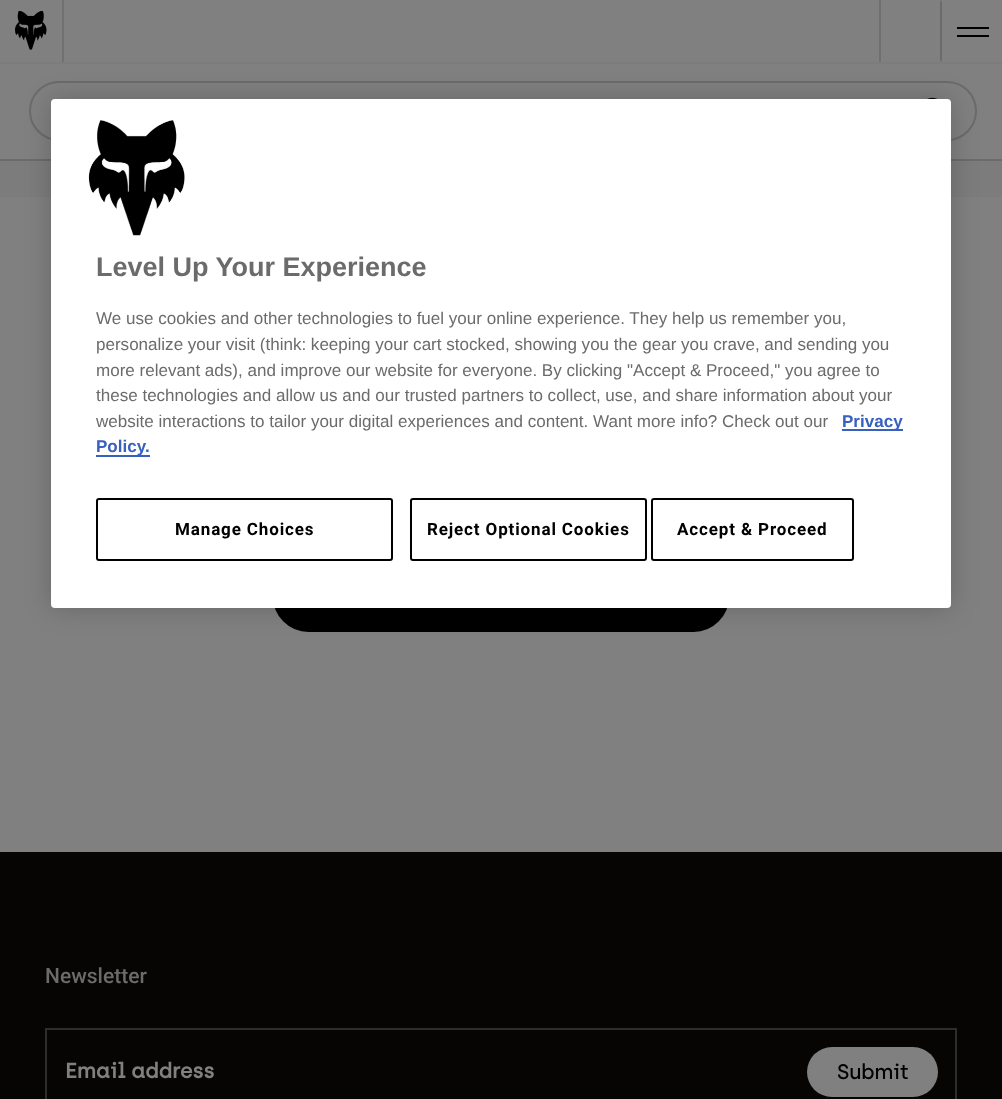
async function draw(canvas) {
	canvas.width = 1002;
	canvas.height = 1099;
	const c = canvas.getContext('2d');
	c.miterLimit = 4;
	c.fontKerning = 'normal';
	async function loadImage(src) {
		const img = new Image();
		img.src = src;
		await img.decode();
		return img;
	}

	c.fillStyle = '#808080';
	c.fillRect(0, 0, 1002, 1099);
	for (const [x, y, w, h, color] of [
		[0, 159, 1002, 2, '#6b6b6b'],
		[0, 62, 1002, 2, '#7c7c7c'],
		[62, 0, 2, 62, '#707070'],
		[879, 0, 2, 62, '#707070'],
	]) {
		c.fillStyle = color;
		c.fillRect(x, y, w, h);
	}
	c.fillStyle = '#6b6b6b';
	c.beginPath();
	c.moveTo(940, 62);
	c.lineTo(940, 0);
	c.lineTo(942, 2);
	c.lineTo(942, 60);
	c.closePath();
	c.fill();
	c.beginPath();
	c.roundRect(30, 82, 946, 58, 29);
	c.strokeStyle = '#6b6b6b';
	c.lineWidth = 2;
	c.stroke();
	c.drawImage(await loadImage('img3.png'), 927, 97, 10, 2);
	c.fillStyle = '#7c7c7c';
	c.fillRect(0, 161, 1002, 36);
	c.fillStyle = '#000';
	c.beginPath();
	c.roundRect(274, 562, 454, 69, 34.5);
	c.fill();
	c.strokeStyle = '#000';
	c.stroke();
	c.fillStyle = '#00000033';
	c.filter = 'blur(13.5px)';
	c.beginPath();
	c.roundRect(51, 99, 900, 509, 4);
	c.fill();
	c.filter = 'none';
	c.fillStyle = '#fff';
	c.beginPath();
	c.roundRect(51, 99, 900, 509, 4);
	c.fill();
	c.drawImage(await loadImage('img1.png'), 88, 119, 97, 117);
	c.font = 'bold 27px Liberation Sans';
	c.fillStyle = '#6b6b6b';
	c.fillText('Level Up Your Experience', 96, 276);
	c.font = '17.05px Liberation Sans';
	for (const [text, x, y] of [
		['We use cookies and other technologies to fuel your online experience. They help us remember you,', 96, 324],
		['personalize your visit (think: keeping your cart stocked, showing you the gear you crave, and sending you', 96, 350],
		['more relevant ads), and improve our website for everyone. By clicking "Accept & Proceed," you agree to', 96, 376],
		['these technologies and allow us and our trusted partners to collect, use, and share information about your', 96, 401],
		['website interactions to tailor your digital experiences and content. Want more info? Check out our', 96, 427],
	]) {
		c.fillText(text, x, y);
	}
	c.fillStyle = '#3860be';
	c.fillRect(842, 429, 61, 2);
	c.font = 'bold 17.05px Liberation Sans';
	c.fillText('Privacy', 842, 427);
	c.fillRect(96, 455, 54, 2);
	c.fillText('Policy.', 96, 452);
	c.beginPath();
	c.roundRect(97, 499, 295, 61, 2);
	c.stroke();
	c.letterSpacing = '0.85px';
	c.font = 'bold 17.05px Roboto';
	c.fillStyle = '#000';
	c.fillText('Manage Choices', 175, 535);
	c.beginPath();
	c.roundRect(411, 499, 235, 61, 2);
	c.stroke();
	c.fillText('Reject Optional Cookies', 427, 535);
	c.beginPath();
	c.roundRect(652, 499, 201, 61, 2);
	c.stroke();
	c.fillText('Accept & Proceed', 677, 535);
	c.drawImage(await loadImage('img2.png'), 15, 11, 32, 39);
	for (const [x, y, w, h, color] of [
		[957, 27, 32, 2, '#000'],
		[957, 35, 32, 2, '#000'],
		[0, 852, 1002, 247, '#060504'],
	]) {
		c.fillStyle = color;
		c.fillRect(x, y, w, h);
	}
	c.letterSpacing = '0px';
	c.font = '500 21px Roboto';
	c.fillStyle = '#6b6b6b';
	c.fillText('Newsletter', 45, 983);
	c.strokeStyle = '#2d2d2d';
	c.strokeRect(46, 1029, 910, 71);
	c.font = 'bold 21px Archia';
	c.fillStyle = '#808080';
	c.fillText('Email address', 65, 1078);
	c.beginPath();
	c.roundRect(807, 1047, 131, 50, 25);
	c.fill();
	c.letterSpacing = '-0.5px';
	c.font = '500 21px Archia';
	c.fillStyle = '#000';
	c.fillText('Submit', 837, 1079);
}

draw(document.querySelector('canvas'));
